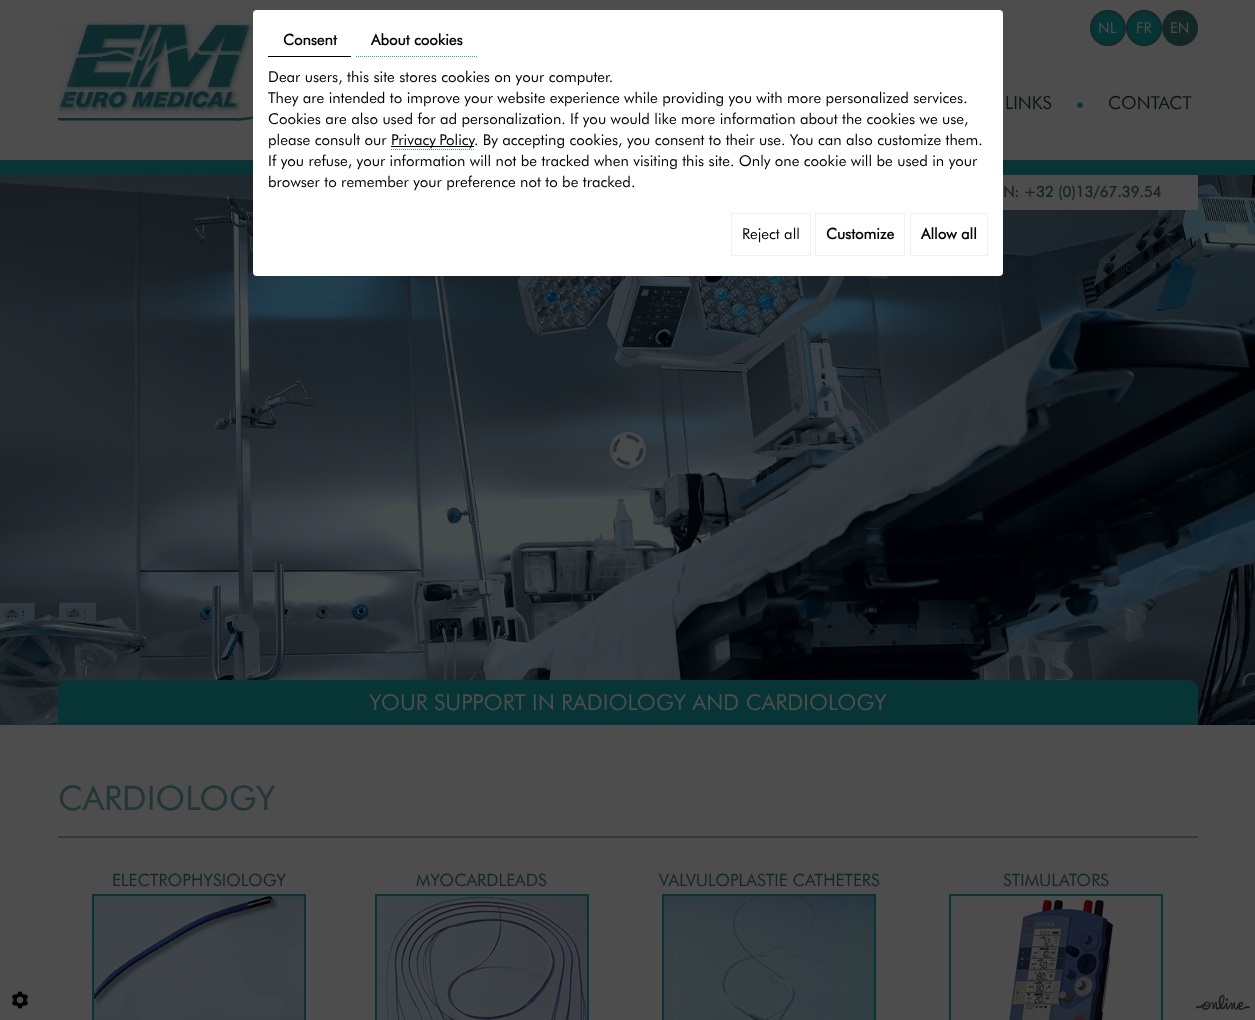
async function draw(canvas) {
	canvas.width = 1255;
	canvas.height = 1020;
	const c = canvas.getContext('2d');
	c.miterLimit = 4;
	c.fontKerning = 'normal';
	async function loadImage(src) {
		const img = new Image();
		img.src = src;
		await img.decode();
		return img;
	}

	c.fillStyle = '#4d4d4d';
	c.fillRect(0, 0, 1255, 1020);
	c.drawImage(await loadImage('img1.png'), 58, 22, 195, 99);
	c.fillStyle = '#073535';
	c.beginPath();
	c.arc(1108, 28, 17, 0, 2 * Math.PI);
	c.fill();
	c.strokeStyle = '#142727';
	c.lineWidth = 2;
	c.stroke();
	c.font = '15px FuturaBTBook';
	c.fillStyle = '#4d4d4d';
	c.fillText('NL', 1098, 33);
	c.fillStyle = '#073535';
	c.beginPath();
	c.arc(1144, 28, 17, 0, 2 * Math.PI);
	c.fill();
	c.stroke();
	c.fillStyle = '#4d4d4d';
	c.fillText('FR', 1136, 33);
	c.fillStyle = '#142727';
	c.beginPath();
	c.arc(1180, 28, 17, 0, 2 * Math.PI);
	c.fill();
	c.stroke();
	c.fillStyle = '#4d4d4d';
	c.fillText('EN', 1170, 33);
	c.fillStyle = '#073535';
	c.fillRect(0, 160, 1255, 15);
	c.font = '18px FuturaBTBook';
	c.fillStyle = '#0b1517';
	c.fillText('LINKS', 1005, 109);
	c.drawImage(await loadImage('img2.png'), 1077, 102, 6, 6);
	c.fillText('CONTACT', 1108, 109);
	c.drawImage(await loadImage('img3.png'), 0, 175, 1255, 550);
	c.fillStyle = '#4d4d4d';
	c.fillRect(1003, 175, 195, 35);
	c.font = 'bold 15px FuturaBTBook';
	c.fillStyle = '#142727';
	c.fillText('N: +32 (0)13/67.39.54', 1003, 197);
	c.fillStyle = '#4d4d4d94';
	c.beginPath();
	c.arc(628, 450, 18, 0, 2 * Math.PI);
	c.fill();
	c.drawImage(await loadImage('img4.png'), 613, 435, 30, 30);
	c.beginPath();
	c.arc(628, 450, 17.5, 0, 2 * Math.PI);
	c.strokeStyle = '#4d4d4da3';
	c.lineWidth = 1;
	c.stroke();
	c.fillStyle = '#073535';
	c.beginPath();
	c.roundRect(58, 680, 1140, 45, [10, 10, 0, 0]);
	c.fill();
	c.font = '22px FuturaBTBook';
	c.fillStyle = '#4d4d4d';
	c.fillText('YOUR SUPPORT IN RADIOLOGY AND CARDIOLOGY', 369, 710);
	c.fillStyle = '#333838';
	c.fillRect(58, 836, 1140, 2);
	c.font = '34px FuturaBTBook';
	c.fillStyle = '#1f3737';
	c.fillText('CARDIOLOGY', 58, 810);
	c.font = '17px FuturaBTBook';
	c.fillStyle = '#142727';
	c.fillText('ELECTROPHYSIOLOGY', 112, 886);
	c.strokeStyle = '#073535';
	c.lineWidth = 2;
	c.strokeRect(93, 895, 212, 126);
	c.drawImage(await loadImage('img5.png'), 94, 896, 210, 124);
	c.fillText('MYOCARDLEADS', 416, 886);
	c.strokeRect(376, 895, 212, 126);
	c.drawImage(await loadImage('img6.png'), 377, 896, 210, 124);
	c.fillText('VALVULOPLASTIE CATHETERS', 659, 886);
	c.strokeRect(663, 895, 212, 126);
	c.drawImage(await loadImage('img7.png'), 664, 896, 210, 124);
	c.fillText('STIMULATORS', 1003, 886);
	c.strokeRect(950, 895, 212, 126);
	c.drawImage(await loadImage('img8.png'), 951, 898, 209, 122);
	c.fillStyle = '#fff';
	c.beginPath();
	c.roundRect(253, 10, 750, 266, 4);
	c.fill();
	c.fillStyle = '#000';
	c.fillRect(268, 56, 83, 1);
	c.font = 'bold 15px FuturaBTBook';
	c.fillText('Consent', 283, 45);
	c.beginPath();
	c.moveTo(356, 56.5);
	c.lineTo(477, 56.5);
	c.strokeStyle = '#18b1b1';
	c.lineWidth = 1;
	c.setLineDash([1, 1]);
	c.stroke();
	c.fillText('About cookies', 371, 45);
	c.font = '15px FuturaBTBook';
	for (const [text, x, y] of [
		['Dear users, this site stores cookies on your computer.', 268, 82],
		['They are intended to improve your website experience while providing you with more personalized services.', 268, 103],
		['Cookies are also used for ad personalization. If you would like more information about the cookies we use,', 268, 124],
		['please consult our', 268, 145],
	]) {
		c.fillText(text, x, y);
	}
	c.fillRect(391, 146, 83, 1);
	c.wordSpacing = '-1px';
	c.fillText('Privacy Policy', 391, 145);
	c.beginPath();
	c.moveTo(391, 149.5);
	c.lineTo(474, 149.5);
	c.stroke();
	c.wordSpacing = '0px';
	for (const [text, x, y] of [
		['. By accepting cookies, you consent to their use. You can also customize them.', 474, 145],
		['If you refuse, your information will not be tracked when visiting this site. Only one cookie will be used in your', 268, 166],
		['browser to remember your preference not to be tracked.', 268, 187],
	]) {
		c.fillText(text, x, y);
	}
	c.strokeStyle = '#f0f0f0';
	c.setLineDash([]);
	c.strokeRect(731.5, 213.5, 79, 42);
	c.fillText('Reject all', 742, 239);
	c.strokeRect(815.5, 213.5, 89, 42);
	c.font = 'bold 15px FuturaBTBook';
	c.fillText('Customize', 826, 239);
	c.strokeRect(910.5, 213.5, 77, 42);
	c.fillText('Allow all', 921, 239);
	c.drawImage(await loadImage('img9.png'), 11, 991, 18, 18);
	c.drawImage(await loadImage('img10.png'), 1196, 995, 54, 15);
}

draw(document.querySelector('canvas'));
